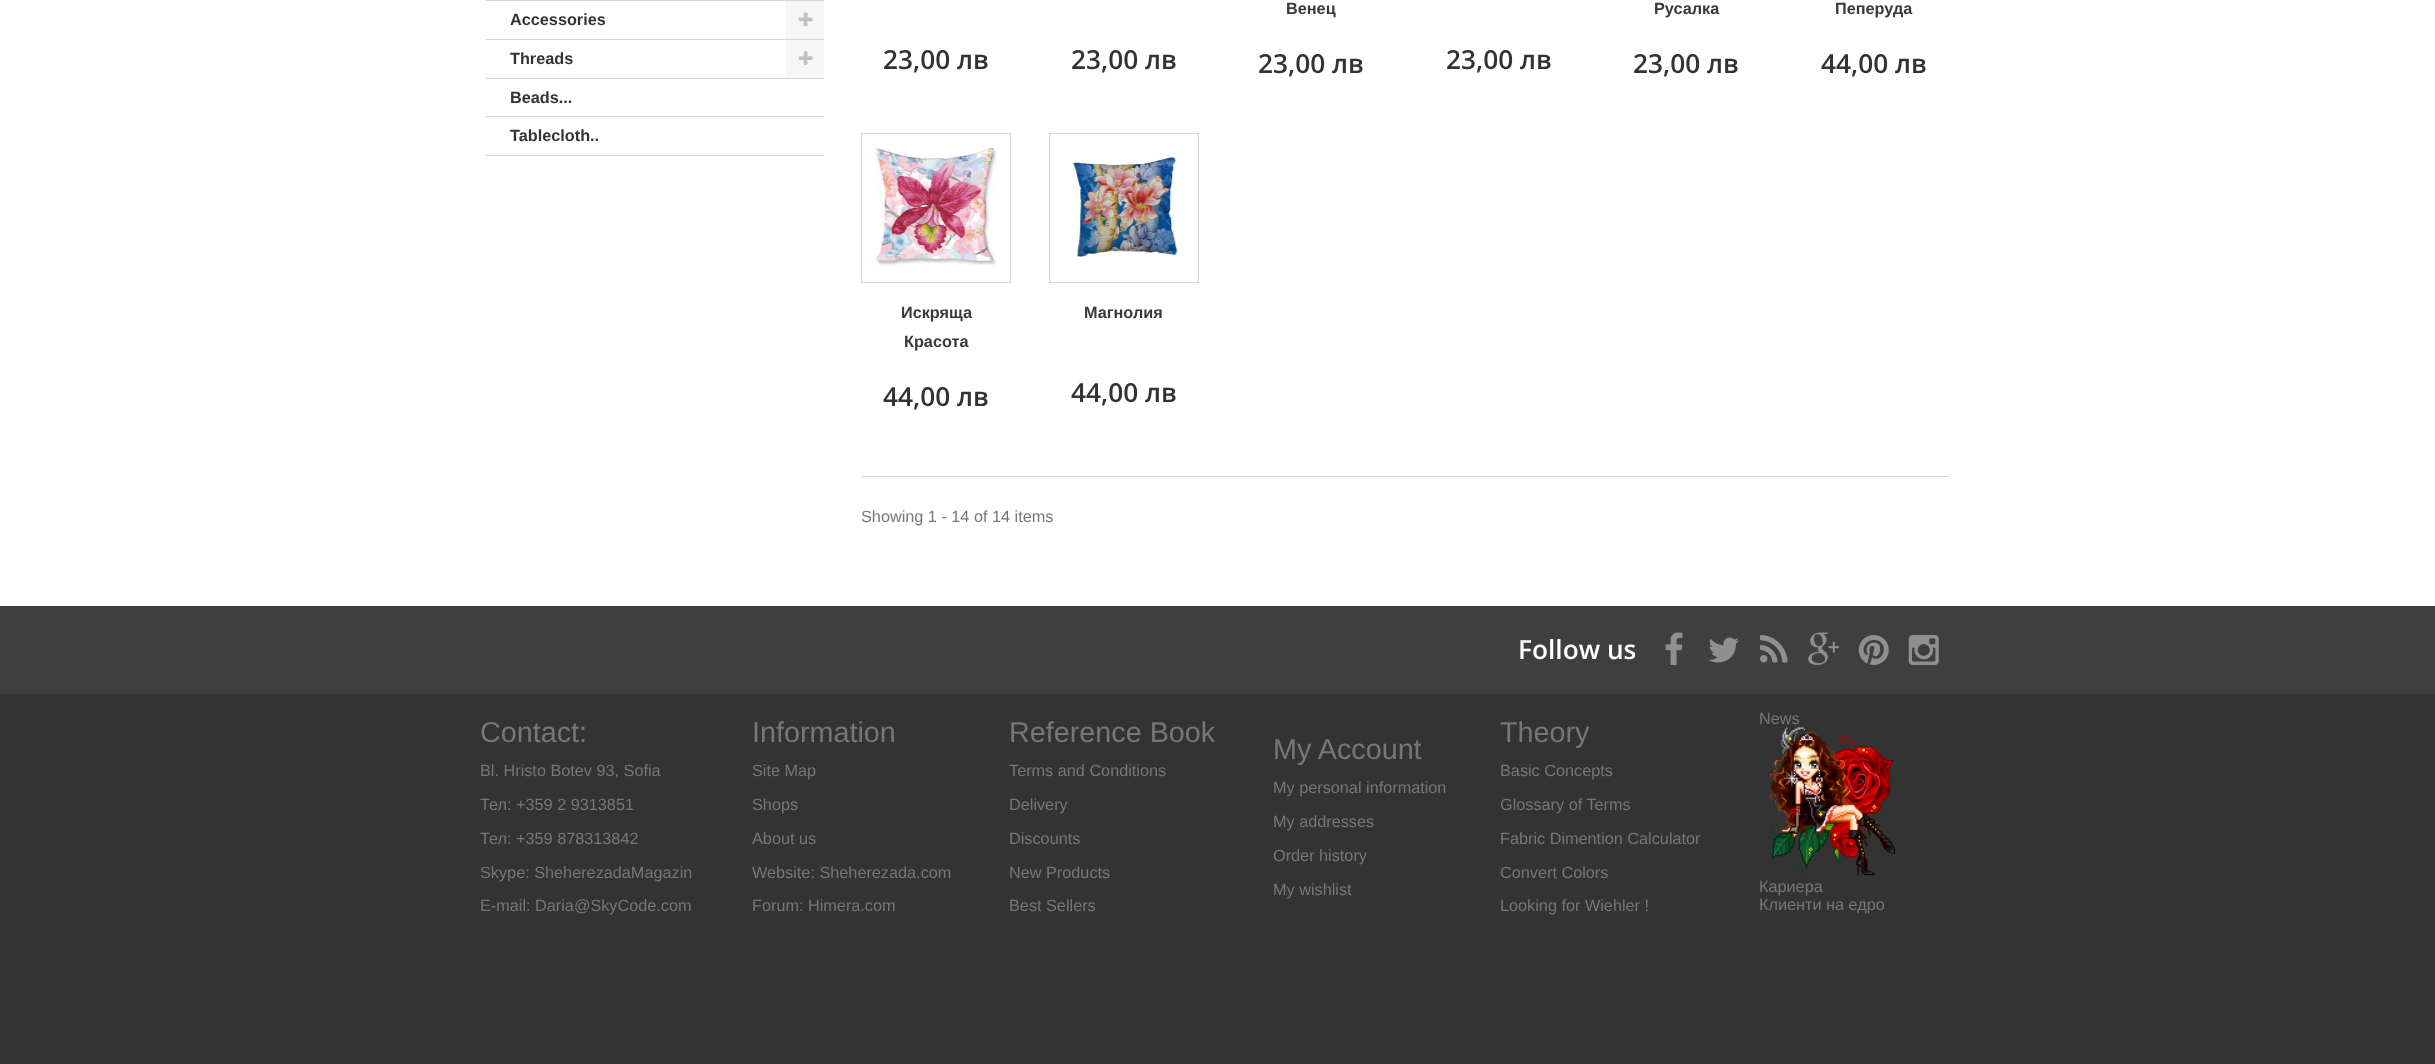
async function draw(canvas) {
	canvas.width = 2435;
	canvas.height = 1064;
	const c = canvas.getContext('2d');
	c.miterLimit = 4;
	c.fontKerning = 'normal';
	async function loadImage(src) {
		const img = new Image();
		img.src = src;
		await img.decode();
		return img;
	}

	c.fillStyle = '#fff';
	c.fillRect(0, 0, 2435, 1064);
	c.fillStyle = '#d6d4d4';
	c.fillRect(486, 0, 338, 1);
	c.fillRect(486, 39, 338, 1);
	c.font = 'bold 16.25px Liberation Sans';
	c.fillStyle = '#333';
	c.fillText('Аccessories', 510, 25);
	c.fillStyle = '#f6f6f6';
	c.fillRect(786, 1, 38, 38);
	c.drawImage(await loadImage('img1.png'), 798, 12, 15, 15);
	c.fillStyle = '#d6d4d4';
	c.fillRect(486, 78, 338, 1);
	c.fillStyle = '#333';
	c.fillText('Threads', 510, 64);
	c.fillStyle = '#f6f6f6';
	c.fillRect(786, 40, 38, 38);
	c.drawImage(await loadImage('img2.png'), 798, 51, 15, 14);
	c.fillStyle = '#d6d4d4';
	c.fillRect(486, 116, 338, 1);
	c.fillStyle = '#333';
	c.fillText('Beads...', 510, 103);
	c.fillStyle = '#d6d4d4';
	c.fillRect(486, 155, 338, 1);
	c.fillStyle = '#333';
	c.fillText('Tablecloth..', 510, 141);
	c.font = '600 26.25px Open Sans';
	c.fillText('23,00 лв', 883, 69);
	c.fillText('23,00 лв', 1071, 69);
	c.font = 'bold 16.25px Liberation Sans';
	c.fillStyle = '#3a3939';
	c.fillText('Венец', 1286, 14);
	c.font = '600 26.25px Open Sans';
	c.fillStyle = '#333';
	c.fillText('23,00 лв', 1258, 73);
	c.fillText('23,00 лв', 1446, 69);
	c.font = 'bold 16.25px Liberation Sans';
	c.fillStyle = '#3a3939';
	c.fillText('Русалка', 1654, 14);
	c.font = '600 26.25px Open Sans';
	c.fillStyle = '#333';
	c.fillText('23,00 лв', 1633, 73);
	c.font = 'bold 16.25px Liberation Sans';
	c.fillStyle = '#3a3939';
	c.fillText('Пеперуда', 1835, 14);
	c.font = '600 26.25px Open Sans';
	c.fillStyle = '#333';
	c.fillText('44,00 лв', 1821, 73);
	c.strokeStyle = '#d6d4d4';
	c.strokeRect(861.5, 133.5, 149, 149);
	c.drawImage(await loadImage('img3.png'), 875, 148, 122, 118);
	c.font = 'bold 16.25px Liberation Sans';
	c.fillStyle = '#3a3939';
	c.fillText('Искряща', 901, 318);
	c.fillText('Красота', 904, 347);
	c.font = '600 26.25px Open Sans';
	c.fillStyle = '#333';
	c.fillText('44,00 лв', 883, 406);
	c.strokeRect(1049.5, 133.5, 149, 149);
	c.drawImage(await loadImage('img4.png'), 1073, 157, 105, 100);
	c.font = 'bold 16.25px Liberation Sans';
	c.fillStyle = '#3a3939';
	c.fillText('Магнолия', 1084, 318);
	c.font = '600 26.25px Open Sans';
	c.fillStyle = '#333';
	c.fillText('44,00 лв', 1071, 402);
	c.fillStyle = '#d6d4d4';
	c.fillRect(861, 476, 1088, 1);
	c.font = '16.25px Liberation Sans';
	c.fillStyle = '#777';
	c.fillText('Showing 1 - 14 of 14 items', 861, 522);
	c.fillStyle = '#333';
	c.fillRect(0, 694, 2435, 370);
	c.fillStyle = '#3f3f3f';
	c.fillRect(0, 606, 2435, 88);
	c.font = '600 26.25px Open Sans';
	c.fillStyle = '#fff';
	c.fillText('Follow us', 1518, 659);
	c.drawImage(await loadImage('img5.png'), 1665, 632, 18, 33);
	c.drawImage(await loadImage('img6.png'), 1708, 637, 31, 26);
	c.drawImage(await loadImage('img7.png'), 1760, 635, 28, 28);
	c.drawImage(await loadImage('img8.png'), 1808, 632, 31, 33);
	c.drawImage(await loadImage('img9.png'), 1858, 635, 31, 30);
	c.drawImage(await loadImage('img10.png'), 1908, 635, 31, 30);
	c.font = '28.75px Liberation Sans';
	c.fillStyle = '#777';
	c.fillText('Contact:', 480, 742);
	c.font = '16.25px Liberation Sans';
	for (const [text, x, y] of [
		['Bl. Hristo Botev 93, Sofia', 480, 776],
		['Тел: +359 2 9313851', 480, 810],
		['Тел: +359 878313842', 480, 844],
		['Skype: SheherezadaMagazin', 480, 878],
		['E-mail: Daria@SkyCode.com', 480, 911],
	]) {
		c.fillText(text, x, y);
	}
	c.font = '28.75px Liberation Sans';
	c.fillText('Information', 752, 742);
	c.font = '16.25px Liberation Sans';
	for (const [text, x, y] of [
		['Site Map', 752, 776],
		['Shops', 752, 810],
		['About us', 752, 844],
		['Website: Sheherezada.com', 752, 878],
		['Forum: Himera.com', 752, 911],
	]) {
		c.fillText(text, x, y);
	}
	c.font = '28.75px Liberation Sans';
	c.fillText('Reference Book', 1009, 742);
	c.font = '16.25px Liberation Sans';
	for (const [text, x, y] of [
		['Terms and Conditions', 1009, 776],
		['Delivery', 1009, 810],
		['Discounts', 1009, 844],
		['New Products', 1009, 878],
		['Best Sellers', 1009, 911],
	]) {
		c.fillText(text, x, y);
	}
	c.font = '28.75px Liberation Sans';
	c.fillText('My Account', 1273, 759);
	c.font = '16.25px Liberation Sans';
	for (const [text, x, y] of [
		['My personal information', 1273, 793],
		['My addresses', 1273, 827],
		['Order history', 1273, 861],
		['My wishlist', 1273, 895],
	]) {
		c.fillText(text, x, y);
	}
	c.font = '28.75px Liberation Sans';
	c.fillText('Theory', 1500, 742);
	c.font = '16.25px Liberation Sans';
	for (const [text, x, y] of [
		['Basic Concepts', 1500, 776],
		['Glossary of Terms', 1500, 810],
		['Fabric Dimention Calculator', 1500, 844],
		['Convert Colors', 1500, 878],
		['Looking for Wiehler !', 1500, 911],
		['News', 1759, 724],
	]) {
		c.fillText(text, x, y);
	}
	c.drawImage(await loadImage('img11.png'), 1770, 727, 125, 149);
	c.fillText('Кариера', 1759, 892);
	c.fillText('Клиенти на едро', 1759, 910);
}

draw(document.querySelector('canvas'));
